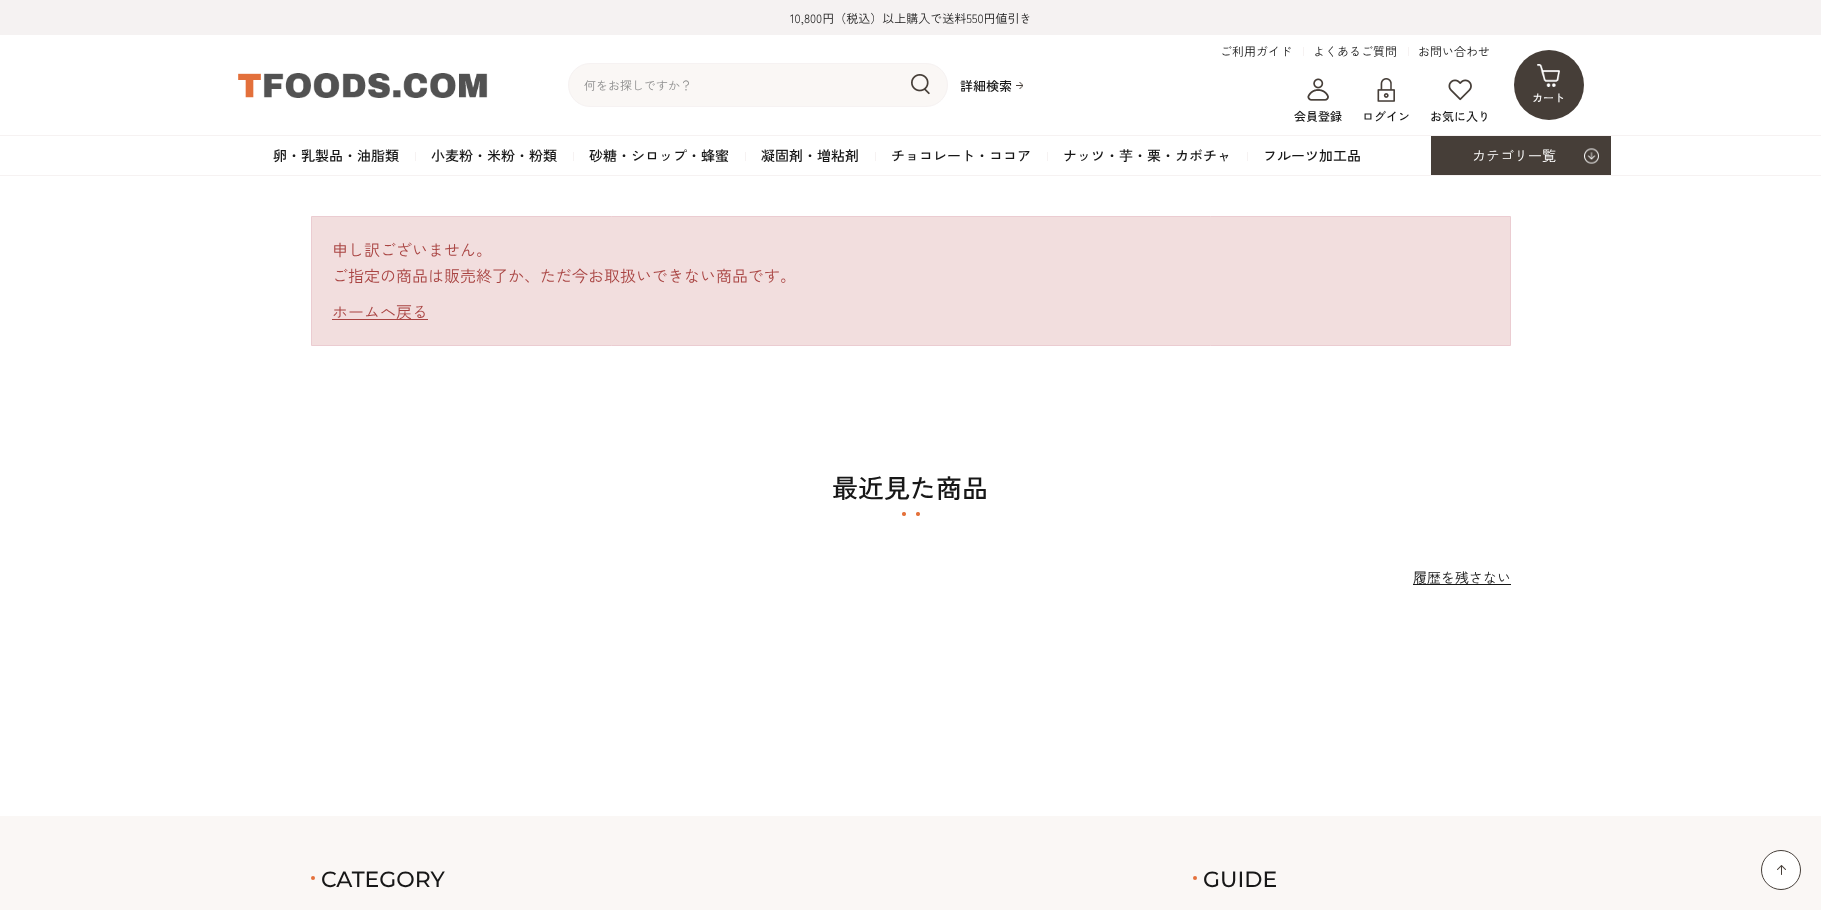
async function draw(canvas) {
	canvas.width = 1821;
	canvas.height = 910;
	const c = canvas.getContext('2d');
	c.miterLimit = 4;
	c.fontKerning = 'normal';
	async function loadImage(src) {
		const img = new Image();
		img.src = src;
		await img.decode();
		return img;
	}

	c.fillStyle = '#fff';
	c.fillRect(0, 0, 1821, 910);
	c.fillStyle = '#f5f2f2';
	c.fillRect(0, 0, 1821, 35);
	c.font = '12px Zen Kaku Gothic New';
	c.fillStyle = '#171717';
	c.fillText('10,800円（税込）以上購入で送料550円値引き', 790, 23);
	c.fillText('ご利用ガイド', 1220, 56);
	c.fillStyle = '#f6f2f2';
	c.fillRect(1303, 47, 1, 9);
	c.fillStyle = '#171717';
	c.fillText('よくあるご質問', 1313, 56);
	c.fillStyle = '#f6f2f2';
	c.fillRect(1408, 47, 1, 9);
	c.fillStyle = '#171717';
	c.fillText('お問い合わせ', 1418, 56);
	c.drawImage(await loadImage('img1.png'), 238, 73, 250, 25);
	c.fillStyle = '#faf7f5';
	c.beginPath();
	c.roundRect(568.5, 63.5, 379, 43, 21.5);
	c.fill();
	c.strokeStyle = '#f6f2f2';
	c.stroke();
	c.fillStyle = '#8e8e8e';
	c.fillText('何をお探しですか？', 584, 90);
	c.drawImage(await loadImage('img2.png'), 911, 74, 19, 21);
	c.font = '500 13px Zen Kaku Gothic New';
	c.fillStyle = '#171717';
	c.fillText('詳細検索', 960, 91);
	c.drawImage(await loadImage('img3.png'), 1016, 82, 7, 7);
	c.fillStyle = '#463e38';
	c.beginPath();
	c.arc(1549, 85, 35, 0, 2 * Math.PI);
	c.fill();
	c.drawImage(await loadImage('img4.png'), 1537, 64, 23, 23);
	c.font = '500 11px Zen Kaku Gothic New';
	c.fillStyle = '#fff';
	c.fillText('カート', 1532, 102);
	c.drawImage(await loadImage('img5.png'), 1307, 78, 22, 23);
	c.font = '500 12px Zen Kaku Gothic New';
	c.fillStyle = '#171717';
	c.fillText('会員登録', 1294, 121);
	c.drawImage(await loadImage('img6.png'), 1377, 78, 18, 24);
	c.fillText('ログイン', 1362, 121);
	c.drawImage(await loadImage('img7.png'), 1448, 79, 24, 22);
	c.fillText('お気に入り', 1430, 121);
	c.fillStyle = '#f6f2f2';
	c.fillRect(0, 135, 1821, 1);
	c.fillRect(0, 175, 1821, 1);
	c.font = '500 14px Zen Kaku Gothic New';
	c.fillStyle = '#171717';
	c.fillText('卵・乳製品・油脂類', 273, 161);
	c.fillStyle = '#f6f2f2';
	c.fillRect(415, 152, 1, 9);
	c.fillStyle = '#171717';
	c.fillText('小麦粉・米粉・粉類', 431, 161);
	c.fillStyle = '#f6f2f2';
	c.fillRect(573, 152, 1, 9);
	c.fillStyle = '#171717';
	c.fillText('砂糖・シロップ・蜂蜜', 589, 161);
	c.fillStyle = '#f6f2f2';
	c.fillRect(745, 152, 1, 9);
	c.fillStyle = '#171717';
	c.fillText('凝固剤・増粘剤', 761, 161);
	c.fillStyle = '#f6f2f2';
	c.fillRect(875, 152, 1, 9);
	c.fillStyle = '#171717';
	c.fillText('チョコレート・ココア', 891, 161);
	c.fillStyle = '#f6f2f2';
	c.fillRect(1047, 152, 1, 9);
	c.fillStyle = '#171717';
	c.fillText('ナッツ・芋・栗・カボチャ', 1063, 161);
	c.fillStyle = '#f6f2f2';
	c.fillRect(1247, 152, 1, 9);
	c.fillStyle = '#171717';
	c.fillText('フルーツ加工品', 1263, 161);
	c.fillStyle = '#463e38';
	c.fillRect(1431, 136, 180, 39);
	c.font = '14px Zen Kaku Gothic New';
	c.fillStyle = '#fff';
	c.fillText('カテゴリ一覧', 1472, 161);
	c.drawImage(await loadImage('img8.png'), 1584, 148, 15, 16);
	c.fillStyle = '#f2dede';
	c.beginPath();
	c.rect(311.5, 216.5, 1199, 129);
	c.fill();
	c.strokeStyle = '#ebccd1';
	c.stroke();
	c.font = '16px Zen Kaku Gothic New';
	c.fillStyle = '#a94442';
	c.fillText('申し訳ございません。', 332, 256);
	c.fillText('ご指定の商品は販売終了か、ただ今お取扱いできない商品です。', 332, 282);
	c.fillRect(332, 319, 96, 1);
	c.fillText('ホームへ戻る', 332, 318);
	c.font = '500 26px Zen Kaku Gothic New';
	c.fillStyle = '#171717';
	c.fillText('最近見た商品', 832, 498);
	c.drawImage(await loadImage('img9.png'), 902, 512, 18, 4);
	c.fillRect(1413, 584, 98, 1);
	c.font = '14px Zen Kaku Gothic New';
	c.fillText('履歴を残さない', 1413, 583);
	c.fillStyle = '#faf7f5';
	c.fillRect(0, 816, 1821, 94);
	c.fillStyle = '#e4713b';
	c.beginPath();
	c.arc(313, 878, 2, 0, 2 * Math.PI);
	c.fill();
	c.font = '100 22px Montserrat';
	c.fillStyle = '#171717';
	c.fillText('CATEGORY', 321, 887);
	c.fillStyle = '#e4713b';
	c.beginPath();
	c.arc(1195, 878, 2, 0, 2 * Math.PI);
	c.fill();
	c.fillStyle = '#171717';
	c.fillText('GUIDE', 1203, 887);
	c.fillStyle = '#fff';
	c.beginPath();
	c.arc(1781, 870, 20, 0, 2 * Math.PI);
	c.fill();
	c.drawImage(await loadImage('img10.png'), 1777, 865, 9, 10);
	c.beginPath();
	c.arc(1781, 870, 19.5, 0, 2 * Math.PI);
	c.strokeStyle = '#463e38';
	c.stroke();
}

draw(document.querySelector('canvas'));
